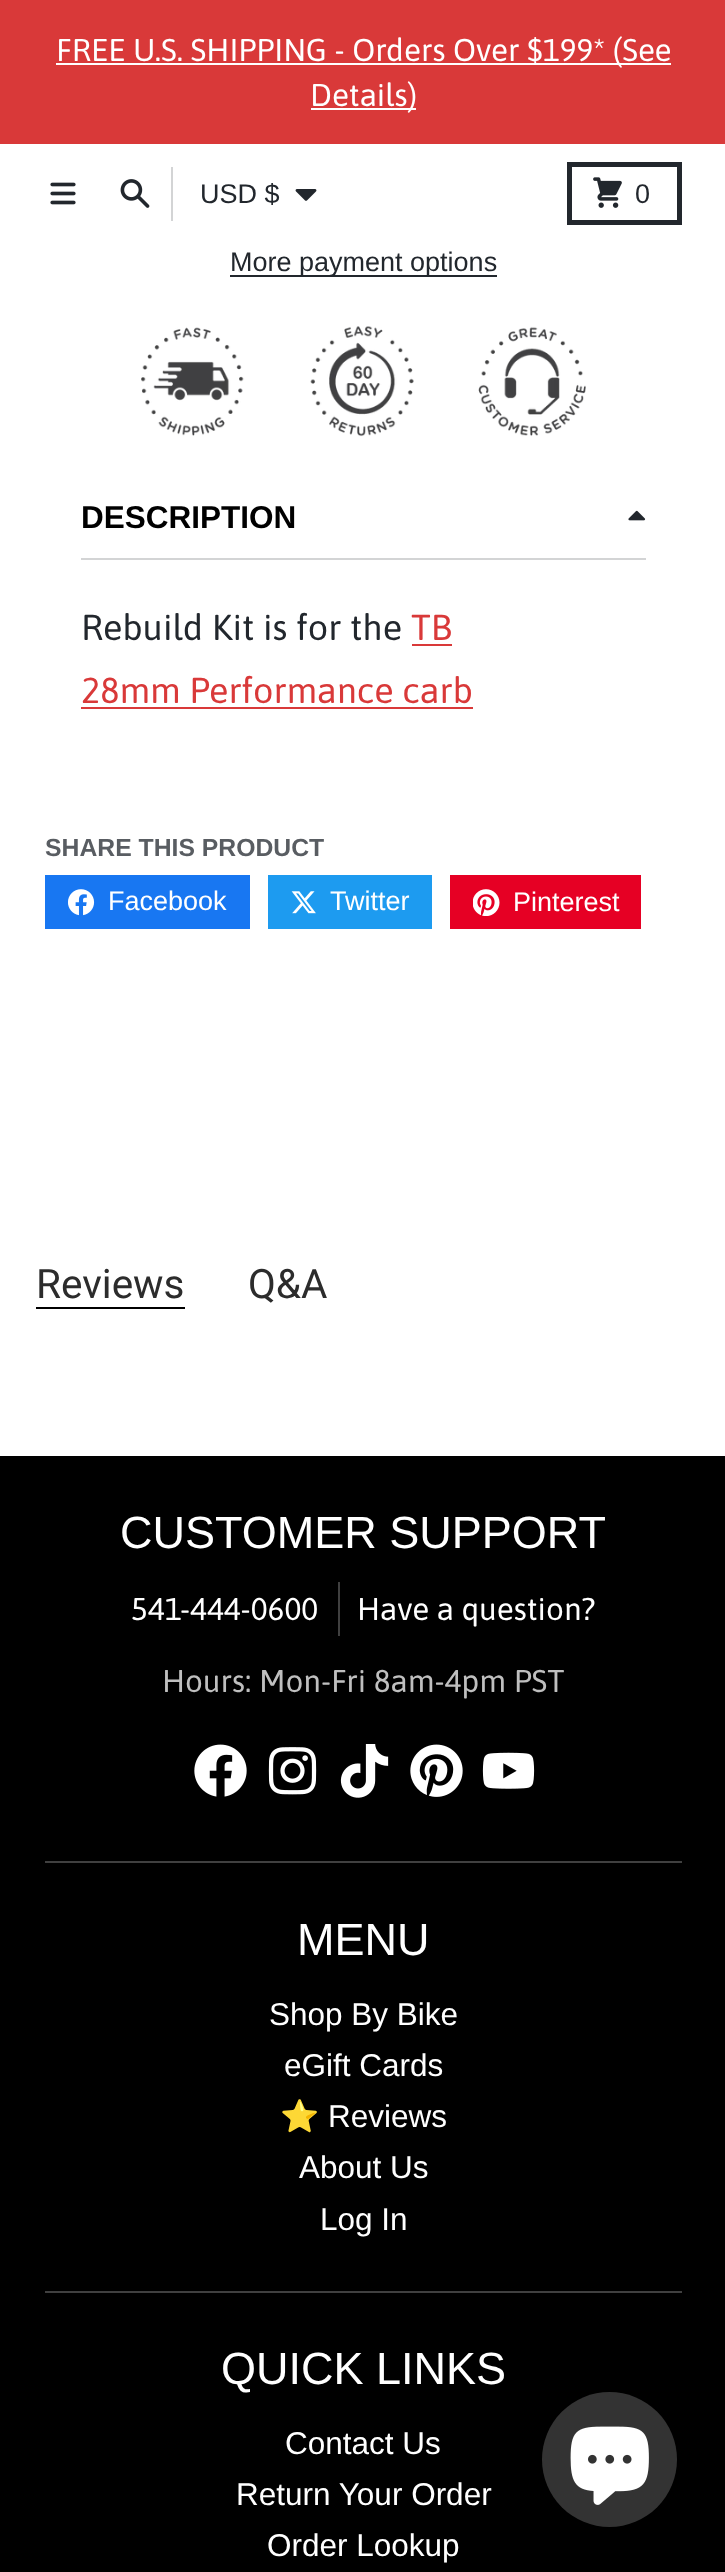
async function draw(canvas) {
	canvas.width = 725;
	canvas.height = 2572;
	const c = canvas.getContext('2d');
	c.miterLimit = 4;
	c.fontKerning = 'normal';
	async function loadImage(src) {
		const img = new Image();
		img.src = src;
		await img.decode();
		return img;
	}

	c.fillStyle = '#000';
	c.fillRect(0, 0, 725, 2572);
	c.fillStyle = '#d93939';
	c.fillRect(0, 0, 725, 144);
	c.fillStyle = '#fff';
	c.fillRect(56, 63, 615, 2);
	c.font = '31.5px Asap';
	c.fillText('FREE U.S. SHIPPING - Orders Over $199* (See', 56, 61);
	c.fillRect(311, 108, 105, 2);
	c.fillText('Details)', 310, 106);
	c.fillRect(0, 144, 725, 1312);
	c.drawImage(await loadImage('img1.png'), 50, 182, 26, 23);
	c.drawImage(await loadImage('img2.png'), 120, 179, 30, 29);
	c.fillStyle = '#d3d4d5';
	c.fillRect(171, 167, 2, 54);
	c.font = '27px Liberation Sans';
	c.fillStyle = '#22272d';
	c.fillText('USD $', 200, 203);
	c.drawImage(await loadImage('img3.png'), 295, 189, 22, 12);
	c.strokeStyle = '#22272d';
	c.lineWidth = 5;
	c.strokeRect(569.5, 164.5, 110, 58);
	c.drawImage(await loadImage('img4.png'), 593, 177, 29, 31);
	c.fillText('0', 635, 203);
	c.fillRect(230, 275, 267, 2);
	c.fillText('More payment options', 230, 271);
	c.drawImage(await loadImage('img5.png'), 141, 326, 445, 111);
	c.fillStyle = '#d3d4d5';
	c.fillRect(81, 558, 565, 2);
	c.font = 'bold 31.5px Liberation Sans';
	c.fillStyle = '#000';
	c.fillText('DESCRIPTION', 81, 528);
	c.drawImage(await loadImage('img6.png'), 628, 510, 18, 11);
	c.font = '36px Asap';
	c.fillStyle = '#22272d';
	c.fillText('Rebuild Kit is for the', 81, 640);
	c.fillStyle = '#d93939';
	c.fillText('TB', 411, 640);
	c.fillRect(412, 644, 40, 2);
	c.fillText('28mm Performance carb', 81, 703);
	c.fillRect(81, 707, 392, 2);
	c.font = 'bold 24.75px Liberation Sans';
	c.fillStyle = '#595d62';
	c.fillText('SHARE THIS PRODUCT', 45, 856);
	c.fillStyle = '#1877f2';
	c.fillRect(45, 875, 205, 54);
	c.drawImage(await loadImage('img7.png'), 68, 889, 27, 27);
	c.font = '27px Liberation Sans';
	c.fillStyle = '#fff';
	c.fillText('Facebook', 108, 910);
	c.fillStyle = '#1d9bf0';
	c.fillRect(268, 875, 164, 54);
	c.drawImage(await loadImage('img8.png'), 291, 891, 25, 23);
	c.fillStyle = '#fff';
	c.fillText('Twitter', 330, 910);
	c.fillStyle = '#e60024';
	c.fillRect(450, 875, 191, 54);
	c.drawImage(await loadImage('img9.png'), 473, 889, 27, 27);
	c.fillStyle = '#fff';
	c.fillText('Pinterest', 513, 911);
	c.fillStyle = '#000';
	c.fillRect(36, 1307, 149, 2);
	c.font = '40.5px Roboto';
	c.fillStyle = '#2c2c2c';
	c.fillText('Reviews', 36, 1298);
	c.fillText('Q&A', 248, 1298);
	c.font = '45px Liberation Sans';
	c.fillStyle = '#fff';
	c.fillText('CUSTOMER SUPPORT', 120, 1548);
	c.font = '31.5px Asap';
	c.fillText('541-444-0600', 131, 1620);
	c.fillStyle = '#404040';
	c.fillRect(338, 1582, 2, 54);
	c.fillStyle = '#fff';
	c.fillText('Have a question?', 357, 1620);
	c.fillStyle = '#bfbfbf';
	c.fillText('Hours: Mon-Fri 8am-4pm PST', 162, 1692);
	c.drawImage(await loadImage('img10.png'), 194, 1744, 53, 53);
	c.drawImage(await loadImage('img11.png'), 268, 1747, 49, 48);
	c.drawImage(await loadImage('img12.png'), 340, 1744, 49, 54);
	c.drawImage(await loadImage('img13.png'), 410, 1744, 53, 53);
	c.drawImage(await loadImage('img14.png'), 482, 1752, 53, 37);
	c.fillStyle = '#404040';
	c.fillRect(45, 1861, 637, 2);
	c.font = '45px Liberation Sans';
	c.fillStyle = '#fff';
	c.fillText('MENU', 297, 1955);
	c.font = '31.5px Liberation Sans';
	c.fillText('Shop By Bike', 269, 2025);
	c.fillText('eGift Cards', 284, 2076);
	c.font = '31.5px Noto Color Emoji';
	c.fillText('⭐️', 280, 2127);
	c.font = '31.5px Liberation Sans';
	for (const [text, x, y] of [
		['Reviews', 328, 2127],
		['About Us', 299, 2178],
		['Log In', 320, 2230],
	]) {
		c.fillText(text, x, y);
	}
	c.fillStyle = '#404040';
	c.fillRect(45, 2291, 637, 2);
	c.font = '45px Liberation Sans';
	c.fillStyle = '#fff';
	c.fillText('QUICK LINKS', 221, 2384);
	c.font = '31.5px Liberation Sans';
	for (const [text, x, y] of [
		['Contact Us', 285, 2454],
		['Return Your Order', 236, 2505],
		['Order Lookup', 267, 2556],
	]) {
		c.fillText(text, x, y);
	}
	c.fillStyle = '#333';
	c.beginPath();
	c.arc(609.5, 2459.5, 67.5, 0, 2 * Math.PI);
	c.fill();
	c.drawImage(await loadImage('img15.png'), 570, 2426, 79, 79);
}

draw(document.querySelector('canvas'));
